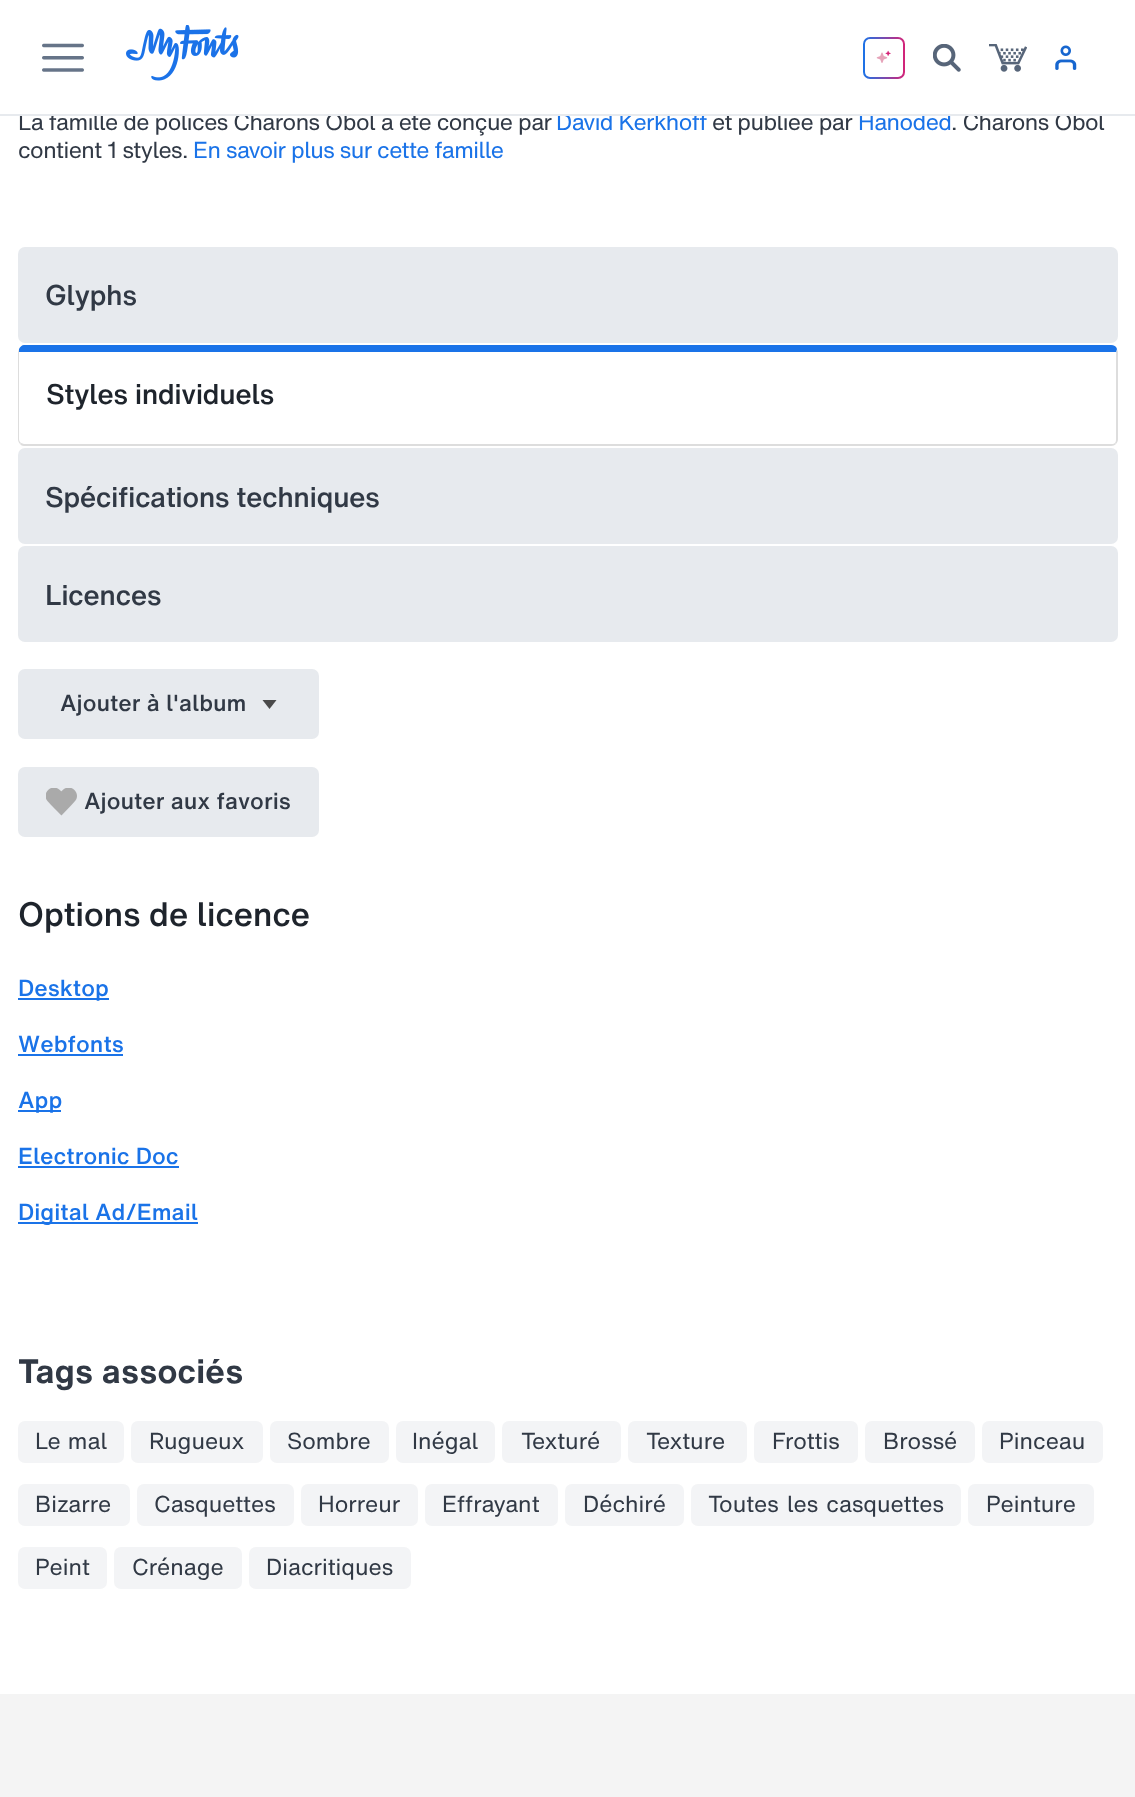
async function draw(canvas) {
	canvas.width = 1135;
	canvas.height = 1797;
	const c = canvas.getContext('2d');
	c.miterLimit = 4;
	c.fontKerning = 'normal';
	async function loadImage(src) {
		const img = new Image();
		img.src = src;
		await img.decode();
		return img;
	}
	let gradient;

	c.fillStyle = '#fff';
	c.fillRect(0, 0, 1135, 1797);
	c.letterSpacing = '-0.55px';
	c.font = '22.75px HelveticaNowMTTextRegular';
	c.fillStyle = '#313945';
	c.fillText('La famille de polices Charons Obol a été conçue par', 18, 130);
	c.fillStyle = '#1a73e8';
	c.fillText('David Kerkhoff', 556, 130);
	c.fillStyle = '#313945';
	c.fillText('et publiée par', 712, 130);
	c.fillStyle = '#1a73e8';
	c.fillText('Hanoded', 858, 130);
	c.fillStyle = '#313945';
	c.fillText('. Charons Obol', 951, 130);
	c.fillStyle = '#fff';
	c.fillRect(19, 112, 1084, 2);
	c.fillStyle = '#e7eaee';
	c.fillRect(0, 114, 1135, 2);
	c.drawImage(await loadImage('img1.png'), 42, 43, 42, 29);
	c.drawImage(await loadImage('img2.png'), 126, 25, 113, 56);
	gradient = c.createLinearGradient(863, 58, 905, 58);
	gradient.addColorStop(0, '#1a73e8');
	gradient.addColorStop(1, '#d52377');
	c.fillStyle = gradient;
	c.beginPath();
	c.roundRect(863, 37, 42, 42, 7);
	c.fill();
	c.fillStyle = '#fff';
	c.beginPath();
	c.roundRect(865, 39, 38, 38, 5);
	c.fill();
	c.drawImage(await loadImage('img3.png'), 876, 50, 15, 13);
	c.drawImage(await loadImage('img4.png'), 933, 44, 28, 28);
	c.drawImage(await loadImage('img5.png'), 989, 44, 38, 28);
	c.drawImage(await loadImage('img6.png'), 1055, 45, 22, 25);
	c.fillStyle = '#313945';
	c.fillText('contient 1 styles.', 18, 158);
	c.fillStyle = '#1a73e8';
	c.fillText('En savoir plus sur cette famille', 193, 158);
	c.fillStyle = '#e7eaee';
	c.beginPath();
	c.roundRect(18, 247, 1100, 96, 7);
	c.fill();
	c.font = '500 28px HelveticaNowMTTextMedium';
	c.fillStyle = '#313945';
	c.fillText('Glyphs', 45, 305);
	c.fillStyle = '#1a73e8';
	c.beginPath();
	c.moveTo(24, 345);
	c.bezierCurveTo(22, 345, 20, 347, 19, 349);
	c.lineTo(19, 352);
	c.lineTo(1116, 352);
	c.lineTo(1116, 354);
	c.lineTo(1117, 349);
	c.bezierCurveTo(1116, 346, 1114, 345, 1111, 345);
	c.closePath();
	c.fill();
	c.fillStyle = '#ddd';
	c.beginPath();
	c.moveTo(1117, 349);
	c.lineTo(1118, 352);
	c.lineTo(1118, 439);
	c.bezierCurveTo(1118, 441, 1117, 443, 1116, 444);
	c.lineTo(1115, 443);
	c.bezierCurveTo(1116, 442, 1116, 440, 1116, 439);
	c.lineTo(1116, 354);
	c.closePath();
	c.fill();
	c.beginPath();
	c.moveTo(1116, 444);
	c.bezierCurveTo(1115, 445, 1113, 446, 1111, 446);
	c.lineTo(24, 446);
	c.bezierCurveTo(22, 446, 21, 445, 20, 444);
	c.lineTo(21, 443);
	c.lineTo(24, 444);
	c.lineTo(1111, 444);
	c.bezierCurveTo(1112, 444, 1114, 444, 1115, 443);
	c.closePath();
	c.fill();
	c.beginPath();
	c.moveTo(19, 349);
	c.lineTo(18, 352);
	c.lineTo(18, 439);
	c.bezierCurveTo(18, 441, 19, 443, 20, 444);
	c.lineTo(21, 443);
	c.bezierCurveTo(20, 442, 19, 441, 19, 439);
	c.lineTo(19, 352);
	c.closePath();
	c.fill();
	c.fillStyle = '#1e242c';
	c.fillText('Styles individuels', 46, 404);
	c.fillStyle = '#e7eaee';
	c.beginPath();
	c.roundRect(18, 448, 1100, 96, 7);
	c.fill();
	c.fillStyle = '#313945';
	c.fillText('Spécifications techniques', 45, 507);
	c.fillStyle = '#e7eaee';
	c.beginPath();
	c.roundRect(18, 546, 1100, 96, 7);
	c.fill();
	c.fillStyle = '#313945';
	c.fillText('Licences', 45, 605);
	c.fillStyle = '#e7eaee';
	c.beginPath();
	c.roundRect(18, 669, 301, 70, 7);
	c.fill();
	c.letterSpacing = '0px';
	c.font = '500 22.75px HelveticaNowMTTextMedium';
	c.fillStyle = '#313945';
	c.fillText('Ajouter à l\'album', 60, 711);
	c.fillStyle = '#4a4a4a';
	c.beginPath();
	c.moveTo(262.5, 700);
	c.lineTo(276.5, 700);
	c.lineTo(269.5, 709);
	c.closePath();
	c.fill();
	c.fillStyle = '#e7eaee';
	c.beginPath();
	c.roundRect(18, 767, 301, 70, 7);
	c.fill();
	c.drawImage(await loadImage('img7.png'), 46, 788, 31, 28);
	c.fillStyle = '#313945';
	c.fillText('Ajouter aux favoris', 84, 809);
	c.letterSpacing = '-0.4px';
	c.font = '500 33.25px HelveticaNowMTTextMedium';
	c.fillStyle = '#1e242c';
	c.fillText('Options de licence', 18, 926);
	c.fillStyle = '#1a73e8';
	c.fillRect(18, 998, 91, 2);
	c.letterSpacing = '0px';
	c.font = '500 22.75px HelveticaNowMTTextMedium';
	c.fillText('Desktop', 18, 996);
	c.fillText('Webfonts', 18, 1052);
	c.fillRect(18, 1054, 105, 2);
	c.fillRect(18, 1110, 43, 2);
	c.fillText('App', 18, 1108);
	c.fillText('Electronic Doc', 18, 1164);
	c.fillRect(18, 1166, 161, 2);
	c.fillRect(18, 1222, 180, 2);
	c.fillText('Digital Ad/Email', 18, 1220);
	c.letterSpacing = '-0.3px';
	c.font = 'bold 33.25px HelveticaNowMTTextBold';
	c.fillStyle = '#313945';
	c.fillText('Tags associés', 18, 1383);
	c.fillStyle = '#f3f4f6';
	c.beginPath();
	c.roundRect(18, 1421, 106, 42, 7);
	c.fill();
	c.letterSpacing = '0px';
	c.wordSpacing = '1px';
	c.font = '22.75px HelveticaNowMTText';
	c.fillStyle = '#313945';
	c.fillText('Le mal', 35, 1449);
	c.fillStyle = '#f3f4f6';
	c.beginPath();
	c.roundRect(131, 1421, 132, 42, 7);
	c.fill();
	c.wordSpacing = '0px';
	c.fillStyle = '#313945';
	c.fillText('Rugueux', 149, 1449);
	c.fillStyle = '#f3f4f6';
	c.beginPath();
	c.roundRect(270, 1421, 119, 42, 7);
	c.fill();
	c.fillStyle = '#313945';
	c.fillText('Sombre', 287, 1449);
	c.fillStyle = '#f3f4f6';
	c.beginPath();
	c.roundRect(396, 1421, 99, 42, 7);
	c.fill();
	c.fillStyle = '#313945';
	c.fillText('Inégal', 412, 1449);
	c.fillStyle = '#f3f4f6';
	c.beginPath();
	c.roundRect(502, 1421, 119, 42, 7);
	c.fill();
	c.fillStyle = '#313945';
	c.fillText('Texturé', 521, 1449);
	c.fillStyle = '#f3f4f6';
	c.beginPath();
	c.roundRect(628, 1421, 119, 42, 7);
	c.fill();
	c.fillStyle = '#313945';
	c.fillText('Texture', 646, 1449);
	c.fillStyle = '#f3f4f6';
	c.beginPath();
	c.roundRect(754, 1421, 104, 42, 7);
	c.fill();
	c.fillStyle = '#313945';
	c.fillText('Frottis', 772, 1449);
	c.fillStyle = '#f3f4f6';
	c.beginPath();
	c.roundRect(865, 1421, 110, 42, 7);
	c.fill();
	c.fillStyle = '#313945';
	c.fillText('Brossé', 883, 1449);
	c.fillStyle = '#f3f4f6';
	c.beginPath();
	c.roundRect(982, 1421, 121, 42, 7);
	c.fill();
	c.fillStyle = '#313945';
	c.fillText('Pinceau', 999, 1449);
	c.fillStyle = '#f3f4f6';
	c.beginPath();
	c.roundRect(18, 1484, 112, 42, 7);
	c.fill();
	c.fillStyle = '#313945';
	c.fillText('Bizarre', 35, 1512);
	c.fillStyle = '#f3f4f6';
	c.beginPath();
	c.roundRect(137, 1484, 157, 42, 7);
	c.fill();
	c.fillStyle = '#313945';
	c.fillText('Casquettes', 154, 1512);
	c.fillStyle = '#f3f4f6';
	c.beginPath();
	c.roundRect(301, 1484, 117, 42, 7);
	c.fill();
	c.fillStyle = '#313945';
	c.fillText('Horreur', 318, 1512);
	c.fillStyle = '#f3f4f6';
	c.beginPath();
	c.roundRect(425, 1484, 133, 42, 7);
	c.fill();
	c.fillStyle = '#313945';
	c.fillText('Effrayant', 442, 1512);
	c.fillStyle = '#f3f4f6';
	c.beginPath();
	c.roundRect(565, 1484, 119, 42, 7);
	c.fill();
	c.fillStyle = '#313945';
	c.fillText('Déchiré', 583, 1512);
	c.fillStyle = '#f3f4f6';
	c.beginPath();
	c.roundRect(691, 1484, 270, 42, 7);
	c.fill();
	c.wordSpacing = '2px';
	c.fillStyle = '#313945';
	c.fillText('Toutes les casquettes', 708, 1512);
	c.fillStyle = '#f3f4f6';
	c.beginPath();
	c.roundRect(968, 1484, 126, 42, 7);
	c.fill();
	c.wordSpacing = '0px';
	c.fillStyle = '#313945';
	c.fillText('Peinture', 986, 1512);
	c.fillStyle = '#f3f4f6';
	c.beginPath();
	c.roundRect(18, 1547, 89, 42, 7);
	c.fill();
	c.fillStyle = '#313945';
	c.fillText('Peint', 35, 1575);
	c.fillStyle = '#f3f4f6';
	c.beginPath();
	c.roundRect(114, 1547, 128, 42, 7);
	c.fill();
	c.fillStyle = '#313945';
	c.fillText('Crénage', 132, 1575);
	c.fillStyle = '#f3f4f6';
	c.beginPath();
	c.roundRect(249, 1547, 162, 42, 7);
	c.fill();
	c.fillStyle = '#313945';
	c.fillText('Diacritiques', 266, 1575);
	c.fillStyle = '#f4f4f4';
	c.fillRect(0, 1694, 1135, 103);
}

draw(document.querySelector('canvas'));
